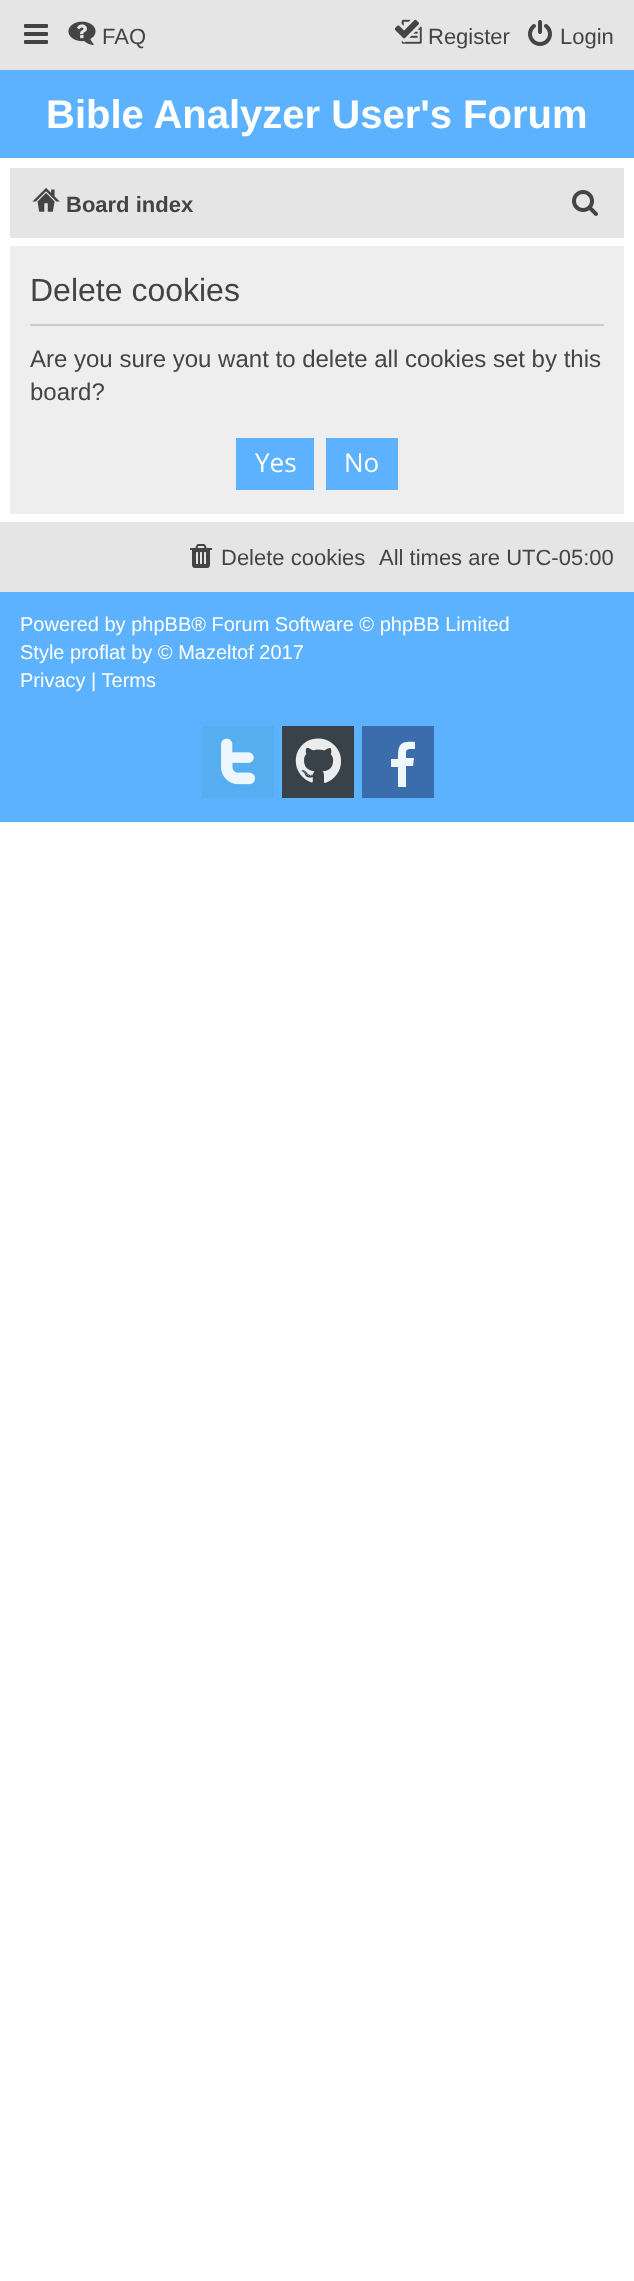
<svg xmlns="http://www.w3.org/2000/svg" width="634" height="2281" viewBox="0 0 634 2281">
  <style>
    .t1 { font: 22px Liberation Sans; fill: #444; }
    .t2 { font: bold 40px Liberation Sans; fill: #fff; }
    .t3 { font: bold 22px Liberation Sans; fill: #444; }
    .t4 { font: 32px Liberation Sans; fill: #444; }
    .t5 { font: 24px Liberation Sans; fill: #444; }
    .t6 { font: 26px Open Sans; fill: #fff; }
    .t7 { font: 20px Liberation Sans; fill: #fff; }
  </style>
  <rect width="100%" height="100%" fill="#fff"/>
  <rect x="0" y="0" width="634" height="70" fill="#e5e5e5"/>
  <image x="24" y="24" width="24" height="20" href="images/1.png"/>
  <image x="68" y="21" width="28" height="24" href="images/2.png"/>
  <text x="102" y="44" class="t1">FAQ</text>
  <image x="394" y="19" width="28" height="25" href="images/3.png"/>
  <text x="428" y="44" class="t1">Register</text>
  <image x="528" y="20" width="24" height="26" href="images/4.png"/>
  <text x="560" y="44" class="t1">Login</text>
  <rect x="0" y="70" width="634" height="88" fill="#5db2ff"/>
  <text x="46" y="128" class="t2">Bible Analyzer User's Forum</text>
  <rect x="10" y="168" width="614" height="70" fill="#e5e5e5"/>
  <image x="32" y="188" width="28" height="24" href="images/5.png"/>
  <text x="66" y="212" class="t3">Board index</text>
  <image x="572" y="190" width="26" height="26" href="images/6.png"/>
  <rect x="10" y="246" width="614" height="268" fill="#eee"/>
  <rect x="30" y="324" width="574" height="2" fill="#ccc"/>
  <text x="30" y="301" class="t4">Delete cookies</text>
  <text x="30" y="367" class="t5">Are you sure you want to delete all cookies set by this</text>
  <text x="30" y="400" class="t5">board?</text>
  <rect x="236" y="438" width="78" height="52" fill="#5db2ff"/>
  <text x="255" y="472" class="t6">Yes</text>
  <rect x="326" y="438" width="72" height="52" fill="#5db2ff"/>
  <text x="344" y="472" class="t6">No</text>
  <rect x="0" y="522" width="634" height="70" fill="#e5e5e5"/>
  <image x="190" y="544" width="22" height="24" href="images/7.png"/>
  <text x="221" y="565" class="t1">Delete cookies</text>
  <text x="379" y="565" class="t1">All times are UTC-05:00</text>
  <rect x="0" y="592" width="634" height="230" fill="#5db2ff"/>
  <text x="20" y="631" class="t7">Powered by phpBB® Forum Software © phpBB Limited</text>
  <text x="20" y="659" class="t7">Style proflat by © Mazeltof 2017</text>
  <text x="20" y="687" class="t7">Privacy | Terms</text>
  <rect x="202" y="726" width="72" height="72" fill="#56adf0"/>
  <image x="221" y="738" width="35" height="47" href="images/8.png"/>
  <rect x="282" y="726" width="72" height="72" fill="#394249"/>
  <image x="295" y="738" width="47" height="45" href="images/9.png"/>
  <rect x="362" y="726" width="72" height="72" fill="#3b6dac"/>
  <path d="M415 742V749C405 749 406 749 406 758H414L413 766H406V787H398V767H391V759H398C398 744 400 741 415 742Z" fill="#eff7ff"/>
</svg>
